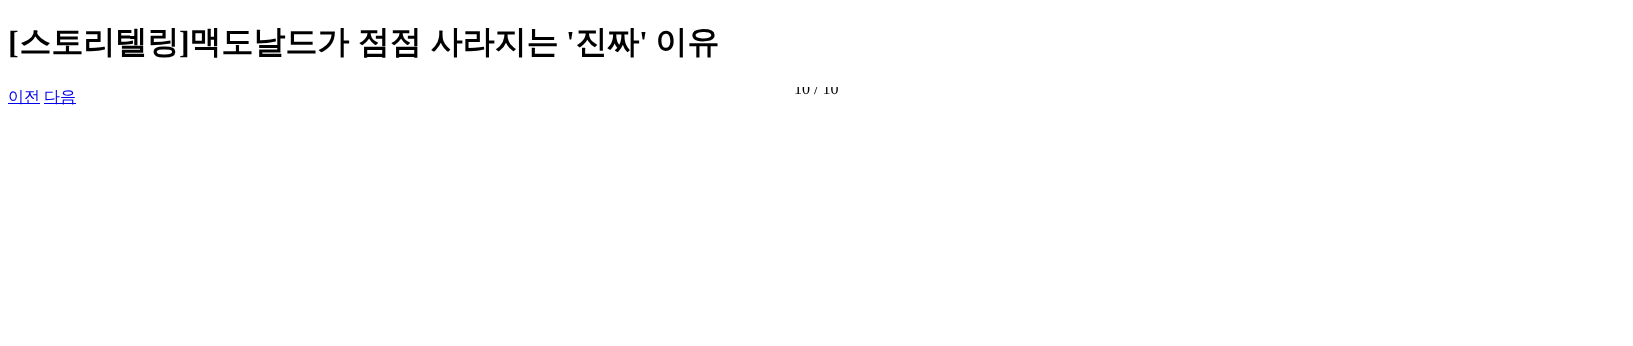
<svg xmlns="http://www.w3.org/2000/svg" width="1633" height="346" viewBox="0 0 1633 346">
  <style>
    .t1 { font: bold 32px Liberation Serif; fill: #000; }
    .t2 { font: bold 32px WenQuanYi Zen Hei; fill: #000; }
    .t3 { font: 500 16px WenQuanYi Zen Hei; fill: #00e; }
    .t4 { font: 16px Liberation Serif; fill: #000; }
  </style>
  <defs>
    <clipPath id="clip1"><rect x="8" y="87" width="1617" height="21"/></clipPath>
  </defs>
  <rect width="100%" height="100%" fill="#fff"/>
  <text x="8" y="53" class="t1">[</text>
  <text x="19" y="53" class="t2">스토리텔링</text>
  <text x="179" y="53" class="t1">]</text>
  <text x="189" y="53" word-spacing="-1" class="t2">맥도날드가 점점 사라지는</text>
  <text x="566" y="53" class="t1">'</text>
  <text x="575" y="53" class="t2">진짜</text>
  <text x="639" y="53" class="t1">'</text>
  <text x="655" y="53" class="t2">이유</text>
  <rect x="8" y="103" width="32" height="1" fill="#00e"/>
  <text x="8" y="102" class="t3">이전</text>
  <rect x="44" y="103" width="32" height="1" fill="#00e"/>
  <text x="44" y="102" class="t3">다음</text>
  <g clip-path="url(#clip1)">
    <text x="794" y="94" class="t4">10 / 10</text>
  </g>
</svg>
